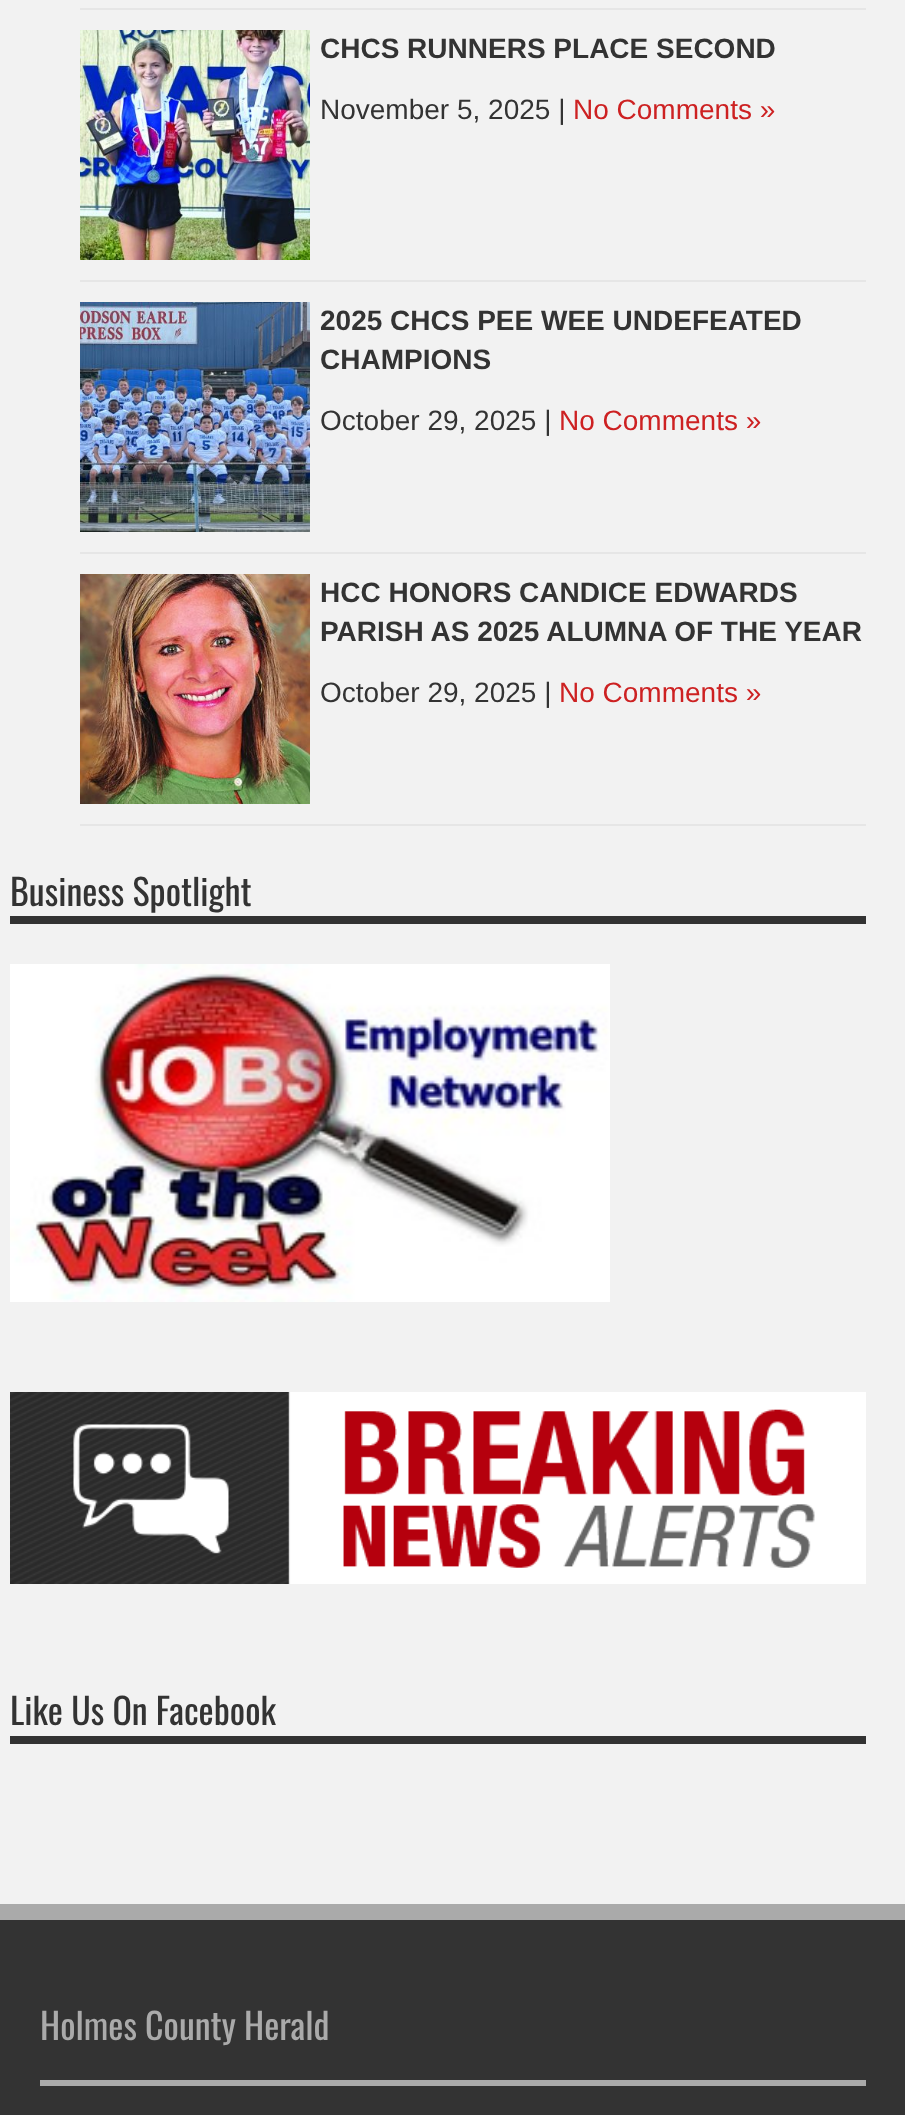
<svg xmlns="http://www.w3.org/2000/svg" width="905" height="2115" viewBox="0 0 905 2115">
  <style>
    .t1 { font: bold 28px Liberation Sans; fill: #333; }
    .t2 { font: 28px Liberation Sans; fill: #333; }
    .t3 { font: 28px Liberation Sans; fill: #cd2122; }
    .t4 { font: 36px Oswald; fill: #333; }
    .t5 { font: 36px Oswald; fill: #aaa; }
  </style>
  <rect width="100%" height="100%" fill="#f2f2f2"/>
  <rect x="80" y="8" width="786" height="2" fill="#e6e6e6"/>
  <rect x="80" y="280" width="786" height="2" fill="#e6e6e6"/>
  <image x="80" y="30" width="230" height="230" href="images/1.png"/>
  <text x="320" y="58" class="t1">CHCS RUNNERS PLACE SECOND</text>
  <text x="320" y="119" class="t2">November 5, 2025 |</text>
  <text x="573" y="119" class="t3">No Comments »</text>
  <rect x="80" y="552" width="786" height="2" fill="#e6e6e6"/>
  <image x="80" y="302" width="230" height="230" href="images/2.png"/>
  <text x="320" y="330" class="t1">2025 CHCS PEE WEE UNDEFEATED</text>
  <text x="320" y="369" class="t1">CHAMPIONS</text>
  <text x="320" y="430" class="t2">October 29, 2025 |</text>
  <text x="559" y="430" class="t3">No Comments »</text>
  <rect x="80" y="824" width="786" height="2" fill="#e6e6e6"/>
  <image x="80" y="574" width="230" height="230" href="images/3.png"/>
  <text x="320" y="602" class="t1">HCC HONORS CANDICE EDWARDS</text>
  <text x="320" y="641" class="t1">PARISH AS 2025 ALUMNA OF THE YEAR</text>
  <text x="320" y="702" class="t2">October 29, 2025 |</text>
  <text x="559" y="702" class="t3">No Comments »</text>
  <rect x="10" y="916" width="856" height="8" fill="#333"/>
  <text x="10" y="906" class="t4">Business Spotlight</text>
  <image x="10" y="964" width="600" height="338" href="images/4.png"/>
  <image x="10" y="1392" width="856" height="192" href="images/5.png"/>
  <rect x="10" y="1736" width="856" height="8" fill="#333"/>
  <text x="10" y="1725" class="t4">Like Us On Facebook</text>
  <rect x="0" y="1920" width="905" height="195" fill="#333"/>
  <rect x="0" y="1904" width="905" height="16" fill="#aaa"/>
  <rect x="40" y="2080" width="826" height="6" fill="#aaa"/>
  <text x="40" y="2040" class="t5">Holmes County Herald</text>
</svg>
